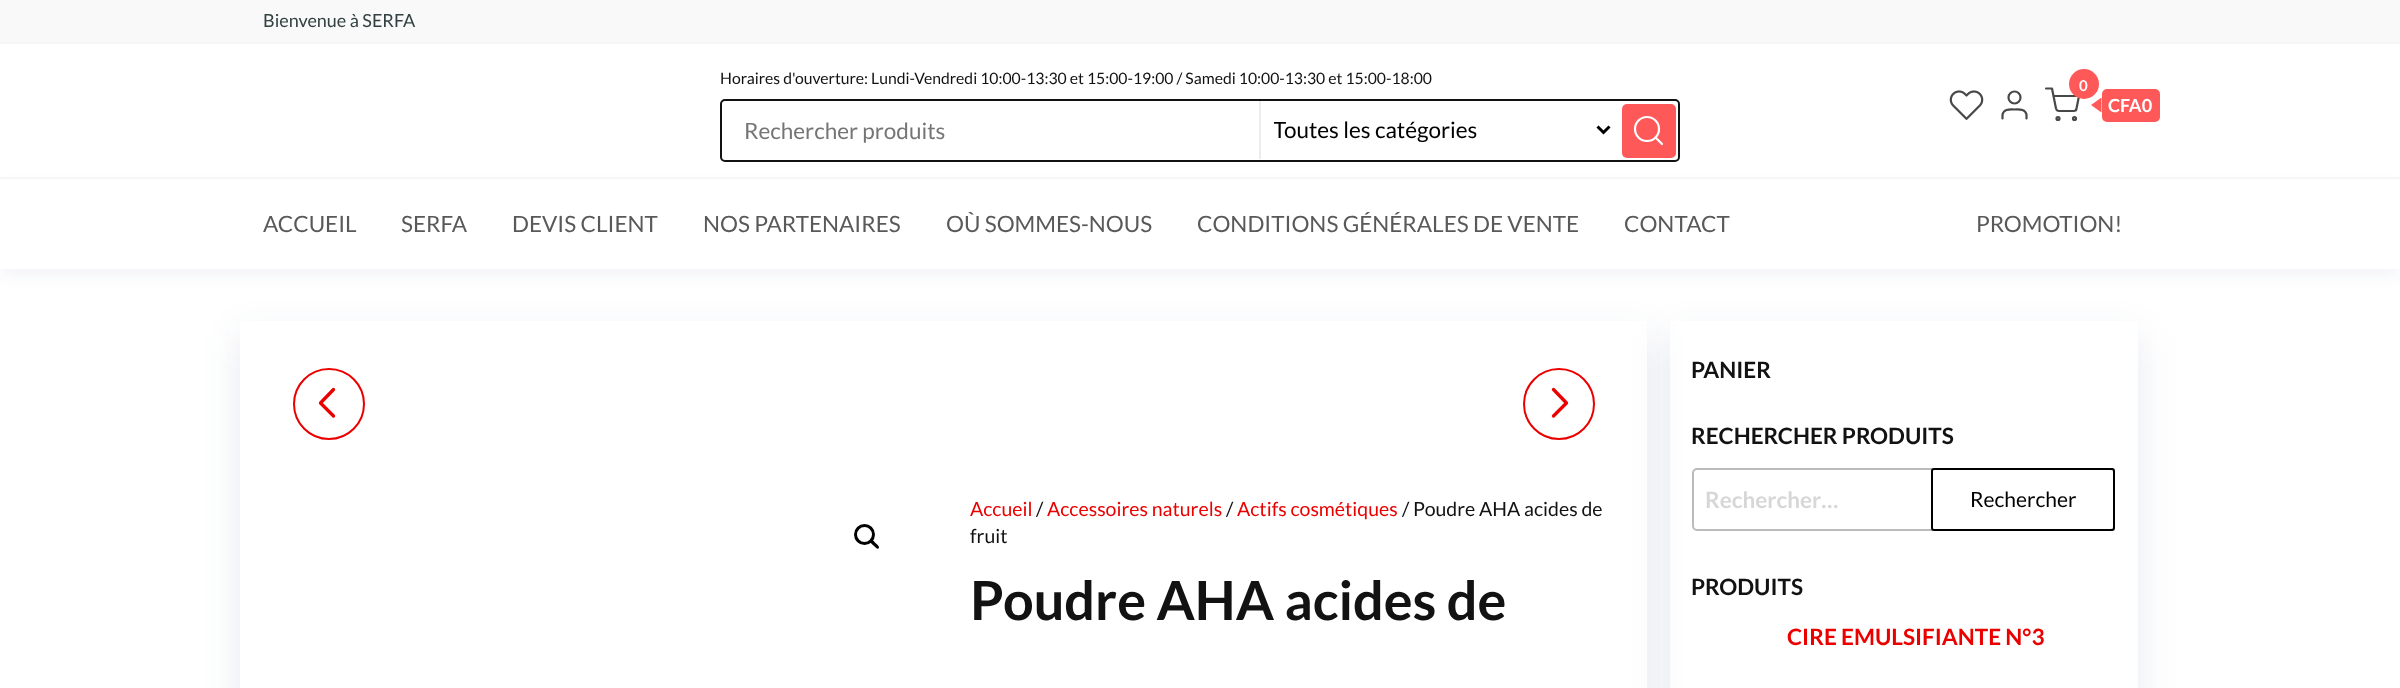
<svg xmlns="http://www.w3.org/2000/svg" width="2400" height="688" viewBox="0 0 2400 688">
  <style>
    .t1 { font: 18px Lato; fill: #334142; }
    .t2 { font: 15.75px Lato; fill: #121212; }
    .t3 { font: 22.5px Lato; fill: #757575; }
    .t4 { font: 22.5px Lato; fill: #000; }
    .t5 { font: bold 15px Lato; fill: #fff; }
    .t6 { font: bold 18px Lato; fill: #fff; }
    .t7 { font: 22.5px Lato; fill: #595959; }
    .t8 { font: 19.5px Lato; fill: #eb0000; }
    .t9 { font: 19.5px Lato; fill: #121212; }
    .t10 { font: bold 54px Lato; fill: #121212; }
    .t11 { font: bold 22.5px Lato; fill: #121212; }
    .t12 { font: bold 22.5px Lato; fill: #d7d7d7; }
    .t13 { font: 21px Lato; fill: #000; }
    .t14 { font: bold 22.5px Lato; fill: #eb0000; }
  </style>
  <defs>
    <clipPath id="clip1"><rect x="1274" y="114" width="310" height="30"/></clipPath>
    <clipPath id="clip2"><path d="M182 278H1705V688H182ZM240 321H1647V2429H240Z" clip-rule="evenodd"/></clipPath>
    <clipPath id="clip3"><path d="M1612 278H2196V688H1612ZM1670 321H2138V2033H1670Z" clip-rule="evenodd"/></clipPath>
  </defs>
  <rect width="100%" height="100%" fill="#fff"/>
  <rect x="0" y="0" width="2400" height="42" fill="#f9f9f9"/>
  <rect x="0" y="42" width="2400" height="2" fill="#f6f6f6"/>
  <text x="263" y="27" class="t1">Bienvenue à SERFA</text>
  <rect x="0" y="186" width="2400" height="90" fill="#192d6e0d" filter="blur(7.5px)"/>
  <rect x="0" y="177" width="2400" height="2" fill="#f6f6f6"/>
  <text x="720" y="84" class="t2">Horaires d'ouverture: Lundi-Vendredi 10:00-13:30 et 15:00-19:00 / Samedi 10:00-13:30 et 15:00-18:00</text>
  <rect x="721" y="100" width="958" height="61" rx="4" fill="none" stroke="#121212" stroke-width="2"/>
  <text x="744" y="139" class="t3">Rechercher produits</text>
  <rect x="1259" y="101" width="2" height="58" fill="#ececec"/>
  <path d="M1597.5 126.5L1603.5 132.5L1609.5 126.5" fill="none" stroke="#000" stroke-width="3"/>
  <g clip-path="url(#clip1)">
    <text x="1273" y="138" class="t4">Toutes les catégories</text>
  </g>
  <rect x="1622" y="104" width="54" height="54" rx="5" fill="#ff5858"/>
  <circle cx="1647" cy="129" r="12" fill="none" stroke="#fff" stroke-width="2.2"/>
  <path d="M1662 144L1655.5 137.5" fill="none" stroke="#fff" stroke-width="2.2" stroke-linecap="round" stroke-linejoin="round"/>
  <image x="1949" y="90" width="35" height="30" href="images/1.png"/>
  <circle cx="2014.5" cy="97.5" r="6" fill="none" stroke="#484848" stroke-width="2.2"/>
  <path d="M2026.5 118.5V114.5C2025 108.5 2019 109.5 2014.5 109.5C2010 109.5 2004 108.5 2002.5 114.5V118.5" fill="none" stroke="#484848" stroke-width="2.2" stroke-linecap="round" stroke-linejoin="round"/>
  <path d="M2046 88.5H2052L2056 108.5C2056.5 110 2057.5 111 2059 111H2073.5C2075 111 2076.5 110 2076.5 108.5L2079 96H2053.5" fill="none" stroke="#484848" stroke-width="2.2" stroke-linecap="round" stroke-linejoin="round"/>
  <circle cx="2084" cy="84" r="15" fill="#ff5858"/>
  <text x="2079" y="91" class="t5">0</text>
  <rect x="2102" y="89" width="58" height="33" rx="5" fill="#ff5858"/>
  <path d="M2101.5 97.5V112.5L2091 105Z" fill="#ff5858"/>
  <text x="2108" y="112" class="t6">CFA0</text>
  <circle cx="2058" cy="118.5" r="1.5" fill="none" stroke="#484848" stroke-width="2.2"/>
  <circle cx="2074.5" cy="118.5" r="1.5" fill="none" stroke="#484848" stroke-width="2.2"/>
  <rect x="0" y="180" width="2400" height="89" fill="#fff"/>
  <text x="263" y="232" class="t7">ACCUEIL</text>
  <text x="401" y="232" class="t7">SERFA</text>
  <text x="512" y="232" class="t7">DEVIS CLIENT</text>
  <text x="703" y="232" class="t7">NOS PARTENAIRES</text>
  <text x="946" y="232" class="t7">OÙ SOMMES-NOUS</text>
  <text x="1197" y="232" class="t7">CONDITIONS GÉNÉRALES DE VENTE</text>
  <text x="1624" y="232" class="t7">CONTACT</text>
  <text x="1976" y="232" class="t7">PROMOTION!</text>
  <g clip-path="url(#clip2)">
    <rect x="240" y="336" width="1407" height="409" fill="#192d6e1a" filter="blur(19px)"/>
  </g>
  <circle cx="329" cy="404" r="35" fill="none" stroke="#eb0000" stroke-width="2"/>
  <path d="M333.5 416L320.5 403L333.5 389.5" fill="none" stroke="#eb0000" stroke-width="3.3" stroke-linecap="round" stroke-linejoin="round"/>
  <circle cx="1559" cy="404" r="35" fill="none" stroke="#eb0000" stroke-width="2"/>
  <path d="M1553.5 416L1566.5 403L1553.5 389.5" fill="none" stroke="#eb0000" stroke-width="3.3" stroke-linecap="round" stroke-linejoin="round"/>
  <circle cx="864.5" cy="534.5" r="9" fill="none" stroke="#000" stroke-width="3"/>
  <path d="M870.5 540C872 538 874.5 542 875.5 543C876.5 544 880.5 546.5 878.5 548.5C877 550 874.5 546 873.5 545.5C872.5 544.5 868.5 541.5 870.5 540Z" fill="#000"/>
  <text x="970" y="516" class="t8">Accueil</text>
  <text x="1036" y="516" class="t9">/</text>
  <text x="1047" y="516" class="t8">Accessoires naturels</text>
  <text x="1226" y="516" class="t9">/</text>
  <text x="1237" y="516" class="t8">Actifs cosmétiques</text>
  <text x="1402" y="516" class="t9">/ Poudre AHA acides de</text>
  <text x="970" y="543" class="t9">fruit</text>
  <text x="970" y="620" class="t10">Poudre AHA acides de</text>
  <g clip-path="url(#clip3)">
    <rect x="1670" y="336" width="468" height="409" fill="#1c2d711a" filter="blur(19px)"/>
  </g>
  <text x="1691" y="378" class="t11">PANIER</text>
  <text x="1691" y="444" class="t11">RECHERCHER PRODUITS</text>
  <rect x="1693" y="469" width="421" height="61" rx="4" fill="none" stroke="#bbb" stroke-width="2"/>
  <text x="1705" y="508" class="t12">Rechercher…</text>
  <rect x="1932" y="469" width="182" height="61" rx="2" fill="none" stroke="#000" stroke-width="2"/>
  <text x="1970" y="507" class="t13">Rechercher</text>
  <text x="1691" y="595" class="t11">PRODUITS</text>
  <text x="1787" y="645" class="t14">CIRE EMULSIFIANTE N°3</text>
</svg>
